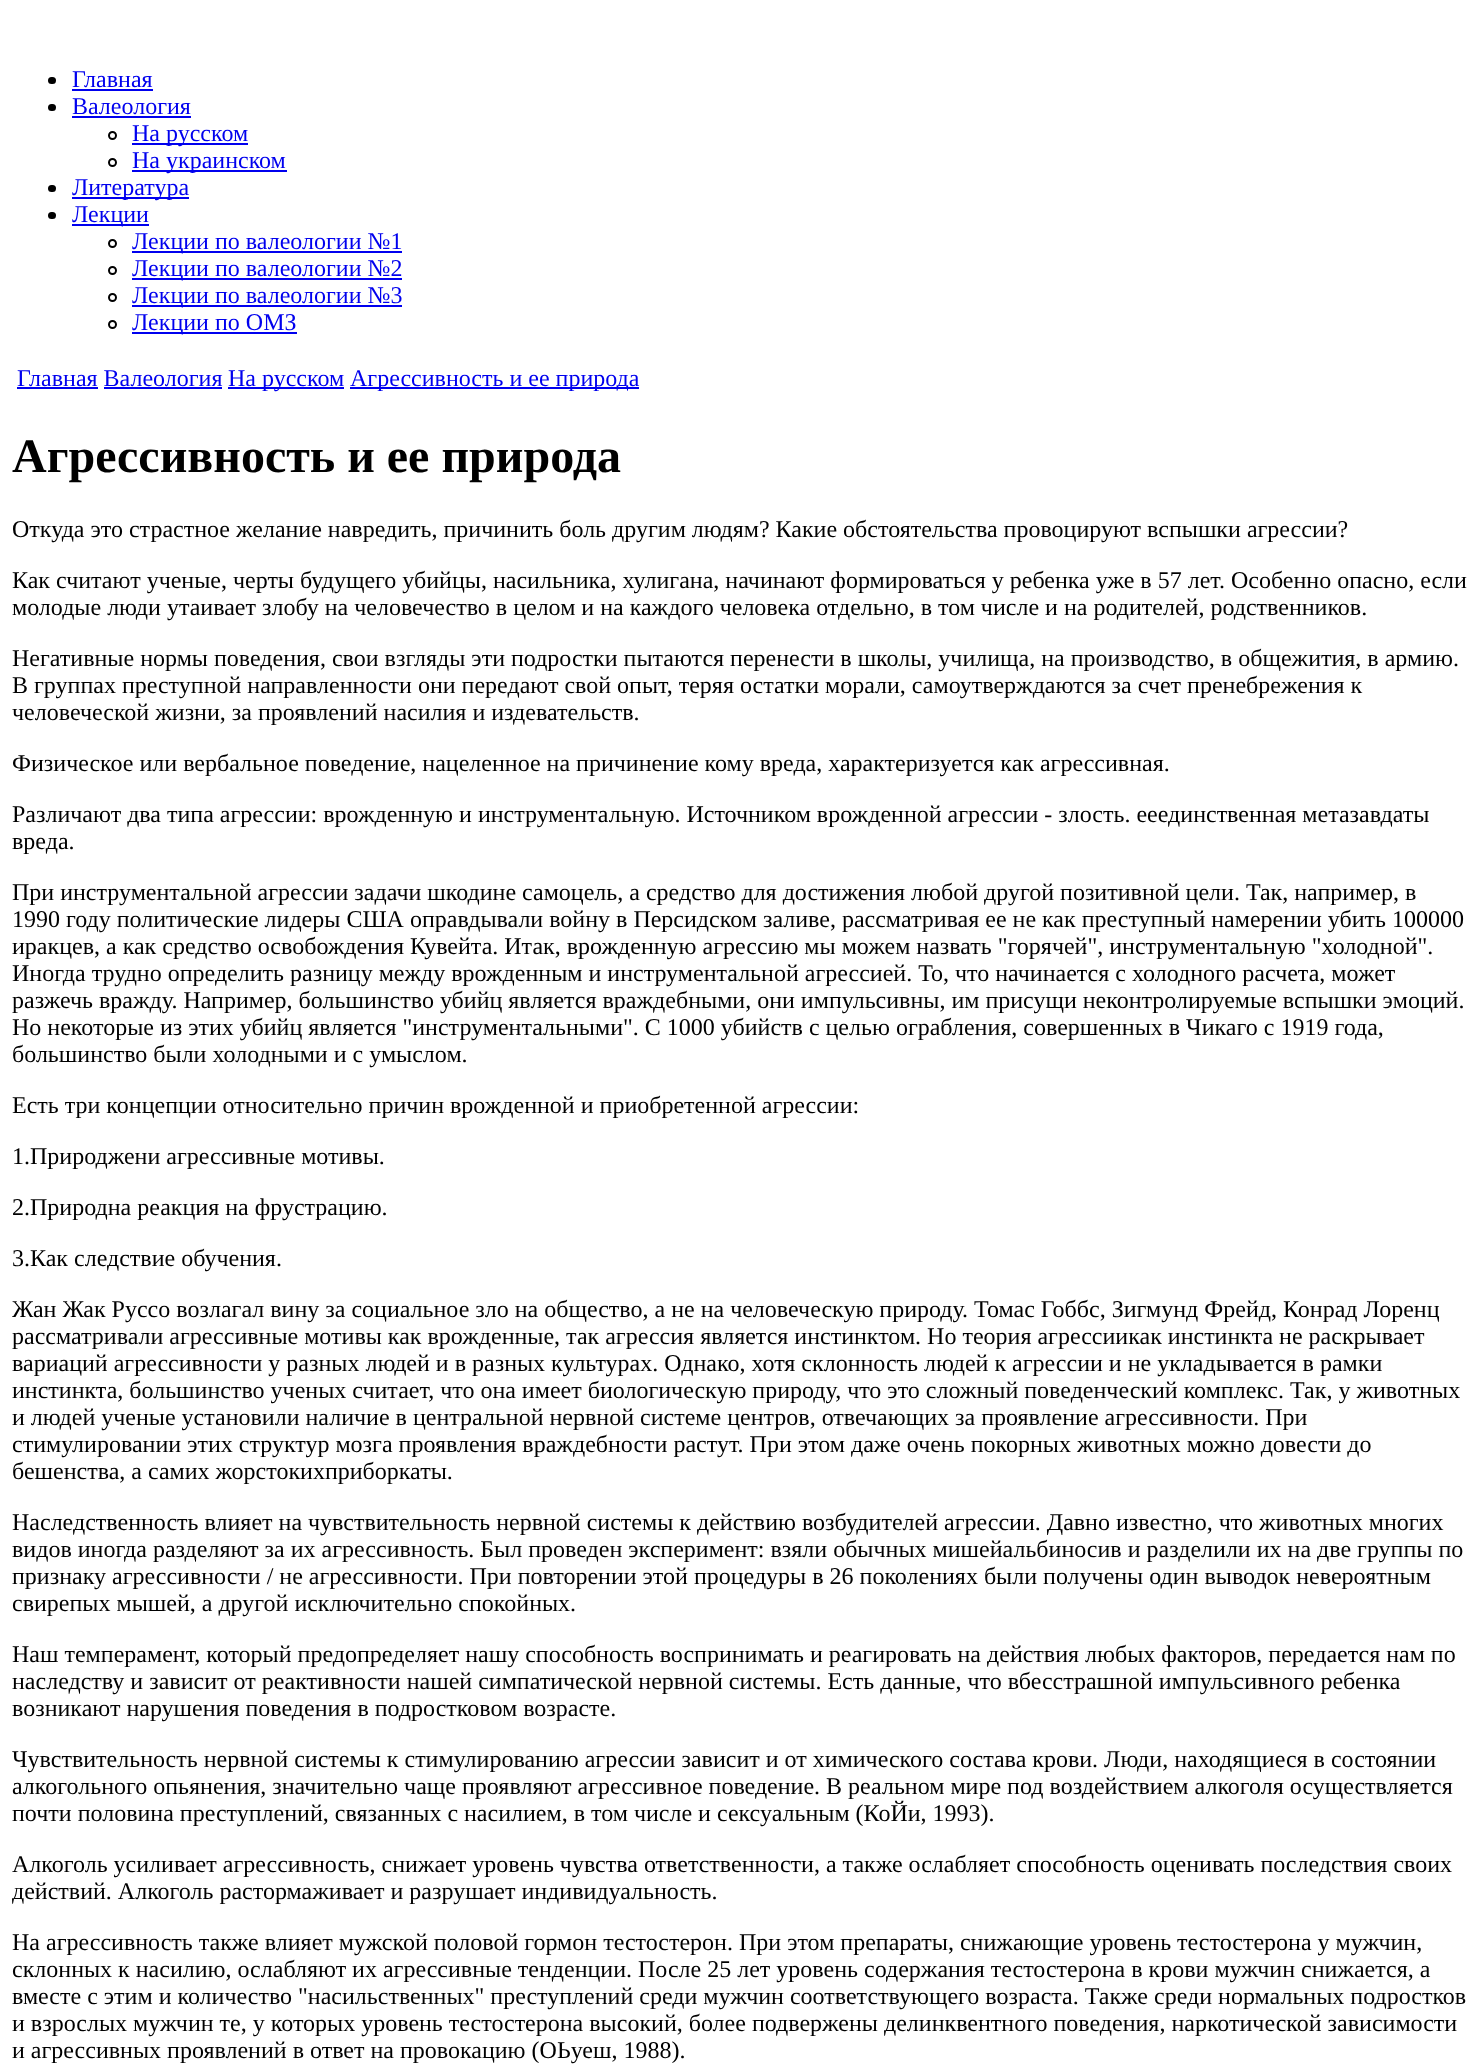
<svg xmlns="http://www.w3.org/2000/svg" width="1481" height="2072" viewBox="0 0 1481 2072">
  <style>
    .t1 { font: 24px Liberation Serif; fill: #00e; }
    .t2 { font: bold 48px Liberation Serif; fill: #000; }
    .t3 { font: 24px Liberation Serif; fill: #000; }
  </style>
  <rect width="100%" height="100%" fill="#fff"/>
  <rect x="48" y="77" width="8" height="7" rx="3.5" fill="#000"/>
  <text x="72" y="87" class="t1">Главная</text>
  <rect x="72" y="89" width="81" height="2" fill="#00e"/>
  <rect x="48" y="104" width="8" height="7" rx="3.5" fill="#000"/>
  <text x="72" y="114" class="t1">Валеология</text>
  <rect x="72" y="116" width="119" height="2" fill="#00e"/>
  <circle cx="112.5" cy="135.5" r="3.5" fill="none" stroke="#000" stroke-width="2"/>
  <rect x="132" y="143" width="116" height="2" fill="#00e"/>
  <text x="132" y="141" class="t1">На русском</text>
  <circle cx="112.5" cy="162.5" r="3.5" fill="none" stroke="#000" stroke-width="2"/>
  <rect x="132" y="170" width="155" height="2" fill="#00e"/>
  <text x="132" y="168" class="t1">На украинском</text>
  <rect x="48" y="185" width="8" height="7" rx="3.5" fill="#000"/>
  <rect x="72" y="197" width="117" height="2" fill="#00e"/>
  <text x="72" y="195" class="t1">Литература</text>
  <rect x="48" y="212" width="8" height="7" rx="3.5" fill="#000"/>
  <rect x="72" y="224" width="77" height="2" fill="#00e"/>
  <text x="72" y="222" class="t1">Лекции</text>
  <circle cx="112.5" cy="243.5" r="3.5" fill="none" stroke="#000" stroke-width="2"/>
  <rect x="132" y="251" width="270" height="2" fill="#00e"/>
  <text x="132" y="249" class="t1">Лекции по валеологии №1</text>
  <circle cx="112.5" cy="270.5" r="3.5" fill="none" stroke="#000" stroke-width="2"/>
  <rect x="132" y="278" width="270" height="2" fill="#00e"/>
  <text x="132" y="276" class="t1">Лекции по валеологии №2</text>
  <circle cx="112.5" cy="297.5" r="3.5" fill="none" stroke="#000" stroke-width="2"/>
  <rect x="132" y="305" width="270" height="2" fill="#00e"/>
  <text x="132" y="303" class="t1">Лекции по валеологии №3</text>
  <circle cx="112.5" cy="324.5" r="3.5" fill="none" stroke="#000" stroke-width="2"/>
  <rect x="132" y="332" width="165" height="2" fill="#00e"/>
  <text x="132" y="330" class="t1">Лекции по ОМЗ</text>
  <text x="17" y="386" class="t1">Главная Валеология</text>
  <rect x="17" y="387" width="81" height="2" fill="#00e"/>
  <rect x="228" y="387" width="116" height="2" fill="#00e"/>
  <text x="228" y="386" class="t1">На русском</text>
  <rect x="350" y="387" width="289" height="2" fill="#00e"/>
  <text x="350" y="386" class="t1">Агрессивность и ее природа</text>
  <rect x="104" y="387" width="118" height="2" fill="#00e"/>
  <text x="12" y="472" class="t2">Агрессивность и ее природа</text>
  <text x="12" y="537" class="t3">Откуда это страстное желание навредить, причинить боль другим людям? Какие обстоятельства провоцируют вспышки агрессии?</text>
  <text x="12" y="588" class="t3">Как считают ученые, черты будущего убийцы, насильника, хулигана, начинают формироваться у ребенка уже в 57 лет. Особенно опасно, если</text>
  <text x="12" y="615" class="t3">молодые люди утаивает злобу на человечество в целом и на каждого человека отдельно, в том числе и на родителей, родственников.</text>
  <text x="12" y="666" class="t3">Негативные нормы поведения, свои взгляды эти подростки пытаются перенести в школы, училища, на производство, в общежития, в армию.</text>
  <text x="12" y="693" class="t3">В группах преступной направленности они передают свой опыт, теряя остатки морали, самоутверждаются за счет пренебрежения к</text>
  <text x="12" y="720" class="t3">человеческой жизни, за проявлений насилия и издевательств.</text>
  <text x="12" y="771" class="t3">Физическое или вербальное поведение, нацеленное на причинение кому вреда, характеризуется как агрессивная.</text>
  <text x="12" y="822" class="t3">Различают два типа агрессии: врожденную и инструментальную. Источником врожденной агрессии - злость. ееединственная метазавдаты</text>
  <text x="12" y="849" class="t3">вреда.</text>
  <text x="12" y="900" class="t3">При инструментальной агрессии задачи шкодине самоцель, а средство для достижения любой другой позитивной цели. Так, например, в</text>
  <text x="12" y="927" class="t3">1990 году политические лидеры США оправдывали войну в Персидском заливе, рассматривая ее не как преступный намерении убить 100000</text>
  <text x="12" y="954" class="t3">иракцев, а как средство освобождения Кувейта. Итак, врожденную агрессию мы можем назвать "горячей", инструментальную "холодной".</text>
  <text x="12" y="981" class="t3">Иногда трудно определить разницу между врожденным и инструментальной агрессией. То, что начинается с холодного расчета, может</text>
  <text x="12" y="1008" class="t3">разжечь вражду. Например, большинство убийц является враждебными, они импульсивны, им присущи неконтролируемые вспышки эмоций.</text>
  <text x="12" y="1035" class="t3">Но некоторые из этих убийц является "инструментальными". С 1000 убийств с целью ограбления, совершенных в Чикаго с 1919 года,</text>
  <text x="12" y="1062" class="t3">большинство были холодными и с умыслом.</text>
  <text x="12" y="1113" class="t3">Есть три концепции относительно причин врожденной и приобретенной агрессии:</text>
  <text x="12" y="1164" class="t3">1.Природжени агрессивные мотивы.</text>
  <text x="12" y="1215" class="t3">2.Природна реакция на фрустрацию.</text>
  <text x="12" y="1266" class="t3">3.Как следствие обучения.</text>
  <text x="12" y="1317" class="t3">Жан Жак Руссо возлагал вину за социальное зло на общество, а не на человеческую природу. Томас Гоббс, Зигмунд Фрейд, Конрад Лоренц</text>
  <text x="12" y="1344" class="t3">рассматривали агрессивные мотивы как врожденные, так агрессия является инстинктом. Но теория агрессиикак инстинкта не раскрывает</text>
  <text x="12" y="1371" class="t3">вариаций агрессивности у разных людей и в разных культурах. Однако, хотя склонность людей к агрессии и не укладывается в рамки</text>
  <text x="12" y="1398" class="t3">инстинкта, большинство ученых считает, что она имеет биологическую природу, что это сложный поведенческий комплекс. Так, у животных</text>
  <text x="12" y="1425" class="t3">и людей ученые установили наличие в центральной нервной системе центров, отвечающих за проявление агрессивности. При</text>
  <text x="12" y="1452" class="t3">стимулировании этих структур мозга проявления враждебности растут. При этом даже очень покорных животных можно довести до</text>
  <text x="12" y="1479" class="t3">бешенства, а самих жорстокихприборкаты.</text>
  <text x="12" y="1530" class="t3">Наследственность влияет на чувствительность нервной системы к действию возбудителей агрессии. Давно известно, что животных многих</text>
  <text x="12" y="1557" class="t3">видов иногда разделяют за их агрессивность. Был проведен эксперимент: взяли обычных мишейальбиносив и разделили их на две группы по</text>
  <text x="12" y="1584" class="t3">признаку агрессивности / не агрессивности. При повторении этой процедуры в 26 поколениях были получены один выводок невероятным</text>
  <text x="12" y="1611" class="t3">свирепых мышей, а другой исключительно спокойных.</text>
  <text x="12" y="1662" class="t3">Наш темперамент, который предопределяет нашу способность воспринимать и реагировать на действия любых факторов, передается нам по</text>
  <text x="12" y="1689" class="t3">наследству и зависит от реактивности нашей симпатической нервной системы. Есть данные, что вбесстрашной импульсивного ребенка</text>
  <text x="12" y="1716" class="t3">возникают нарушения поведения в подростковом возрасте.</text>
  <text x="12" y="1767" class="t3">Чувствительность нервной системы к стимулированию агрессии зависит и от химического состава крови. Люди, находящиеся в состоянии</text>
  <text x="12" y="1794" class="t3">алкогольного опьянения, значительно чаще проявляют агрессивное поведение. В реальном мире под воздействием алкоголя осуществляется</text>
  <text x="12" y="1821" class="t3">почти половина преступлений, связанных с насилием, в том числе и сексуальным (КоЙи, 1993).</text>
  <text x="12" y="1872" class="t3">Алкоголь усиливает агрессивность, снижает уровень чувства ответственности, а также ослабляет способность оценивать последствия своих</text>
  <text x="12" y="1899" class="t3">действий. Алкоголь растормаживает и разрушает индивидуальность.</text>
  <text x="12" y="1950" class="t3">На агрессивность также влияет мужской половой гормон тестостерон. При этом препараты, снижающие уровень тестостерона у мужчин,</text>
  <text x="12" y="1977" class="t3">склонных к насилию, ослабляют их агрессивные тенденции. После 25 лет уровень содержания тестостерона в крови мужчин снижается, а</text>
  <text x="12" y="2004" class="t3">вместе с этим и количество "насильственных" преступлений среди мужчин соответствующего возраста. Также среди нормальных подростков</text>
  <text x="12" y="2031" class="t3">и взрослых мужчин те, у которых уровень тестостерона высокий, более подвержены делинквентного поведения, наркотической зависимости</text>
  <text x="12" y="2058" class="t3">и агрессивных проявлений в ответ на провокацию (ОЬуеш, 1988).</text>
</svg>
